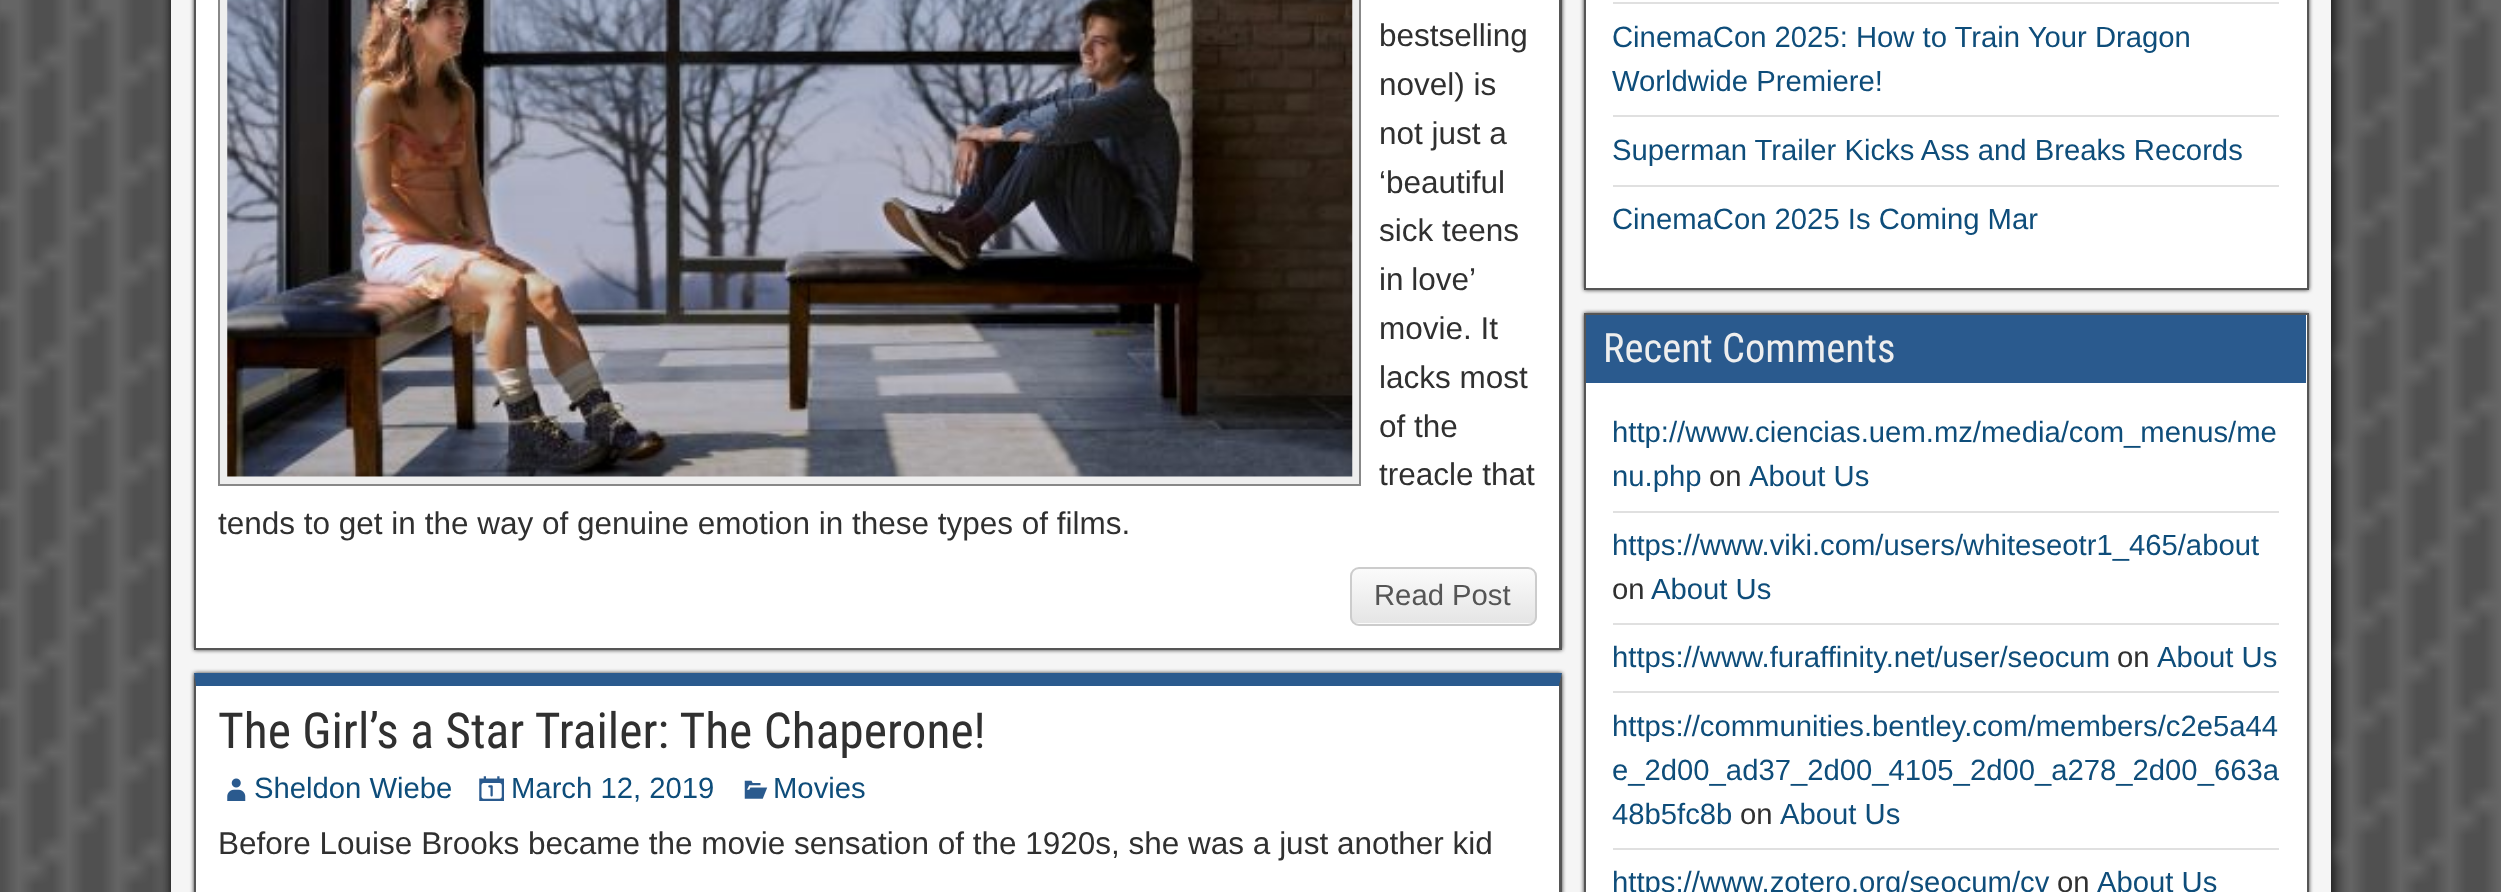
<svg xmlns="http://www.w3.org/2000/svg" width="2501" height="892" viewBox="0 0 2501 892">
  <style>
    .t1 { font: 31.5px Arimo; fill: #303030; }
    .t2 { font: 29.25px Liberation Sans; fill: #555; }
    .t3 { font: 49.5px Roboto Condensed; fill: #303030; }
    .t4 { font: 29.25px Liberation Sans; fill: #0e4d7a; }
    .t5 { font: 40.5px Roboto Condensed; fill: #eee; }
    .t6 { font: 29.25px Liberation Sans; fill: #303030; }
  </style>
  <defs>
    <clipPath id="clip1"><rect x="1350" y="567" width="187" height="59" rx="9"/></clipPath>
    <linearGradient id="g1" gradientUnits="userSpaceOnUse" x1="1443" y1="569" x2="1443" y2="623"><stop offset="0" stop-color="#fbfbfb"/><stop offset="1" stop-color="#e5e5e5"/></linearGradient>
    <linearGradient id="g2" gradientUnits="userSpaceOnUse" x1="1443" y1="623" x2="1443" y2="677"><stop offset="0" stop-color="#fbfbfb"/><stop offset="1" stop-color="#e5e5e5"/></linearGradient>
  </defs>
  <rect width="100%" height="100%" fill="#505050"/>
  <image x="0" y="0" width="2501" height="892" href="images/1.png"/>
  <rect x="171" y="-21" width="2160" height="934" fill="#000" filter="blur(7px)"/>
  <rect x="171" y="0" width="2160" height="892" fill="#f5f5f5"/>
  <rect x="194" y="-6" width="1368" height="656" fill="#333" filter="blur(2px)"/>
  <rect x="196" y="0" width="1363" height="648" fill="#fff"/>
  <path d="M1562-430V650L1559 648V-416Z" fill="#555"/>
  <rect x="194" y="648" width="1368" height="2" fill="#555"/>
  <path d="M194 650V-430L196-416V648Z" fill="#555"/>
  <rect x="219" y="-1" width="1141" height="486" fill="#eee" stroke="#888" stroke-width="2"/>
  <image x="227" y="0" width="1126" height="477" href="images/2.png"/>
  <text x="1379" y="46" class="t1">bestselling</text>
  <text x="1379" y="95" class="t1">novel) is</text>
  <text x="1379" y="144" class="t1">not just a</text>
  <text x="1379" y="193" class="t1">‘beautiful</text>
  <text x="1379" y="241" class="t1">sick teens</text>
  <text x="1379" y="290" word-spacing="-1" class="t1">in love’</text>
  <text x="1379" y="339" class="t1">movie. It</text>
  <text x="1379" y="388" class="t1">lacks most</text>
  <text x="1379" y="437" class="t1">of the</text>
  <text x="1379" y="485" class="t1">treacle that</text>
  <text x="218" y="534" class="t1">tends to get in the way of genuine emotion in these types of films.</text>
  <g clip-path="url(#clip1)">
    <rect x="1350" y="569" width="187" height="54" fill="url(#g1)"/>
    <rect x="1350" y="623" width="187" height="3" fill="url(#g2)"/>
  </g>
  <rect x="1351" y="568" width="185" height="57" rx="8" fill="none" stroke="#ccc" stroke-width="2"/>
  <text x="1374" y="605" class="t2">Read Post</text>
  <rect x="194" y="673" width="1368" height="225" fill="#333" filter="blur(2px)"/>
  <rect x="196" y="686" width="1363" height="206" fill="#fff"/>
  <path d="M194 673H1562L1559 686H196Z" fill="#2a5a8e"/>
  <path d="M1562 673V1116L1559 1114V686Z" fill="#555"/>
  <path d="M194 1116V673L196 686V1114Z" fill="#555"/>
  <text x="218" y="748" class="t3">The Girl’s a Star Trailer: The Chaperone!</text>
  <image x="227" y="778" width="19" height="23" href="images/3.png"/>
  <text x="254" y="798" class="t4">Sheldon Wiebe</text>
  <image x="479" y="776" width="25" height="25" href="images/4.png"/>
  <text x="511" y="798" class="t4">March 12, 2019</text>
  <image x="744" y="780" width="24" height="19" href="images/5.png"/>
  <text x="773" y="798" class="t4">Movies</text>
  <text x="218" y="854" class="t1">Before Louise Brooks became the movie sensation of the 1920s, she was a just another kid</text>
  <rect x="1584" y="-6" width="725" height="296" fill="#333" filter="blur(2px)"/>
  <rect x="1585" y="-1" width="723" height="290" fill="#fff" stroke="#555" stroke-width="2"/>
  <rect x="1613" y="2" width="666" height="2" fill="#e0e0e0"/>
  <rect x="1613" y="115" width="666" height="2" fill="#e0e0e0"/>
  <text x="1612" y="47" class="t4">CinemaCon 2025: How to Train Your Dragon</text>
  <text x="1612" y="91" class="t4">Worldwide Premiere!</text>
  <rect x="1613" y="185" width="666" height="2" fill="#e0e0e0"/>
  <text x="1612" y="160" class="t4">Superman Trailer Kicks Ass and Breaks Records</text>
  <text x="1612" y="229" class="t4">CinemaCon 2025 Is Coming Mar</text>
  <rect x="1584" y="313" width="725" height="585" fill="#333" filter="blur(2px)"/>
  <rect x="1585" y="314" width="723" height="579" fill="#fff" stroke="#555" stroke-width="2"/>
  <rect x="1586" y="315" width="720" height="68" fill="#2a5a8e"/>
  <text x="1603" y="362" class="t5">Recent Comments</text>
  <rect x="1613" y="511" width="666" height="2" fill="#e0e0e0"/>
  <text x="1612" y="442" class="t4">http://www.ciencias.uem.mz/media/com_menus/me</text>
  <text x="1612" y="486" class="t4">nu.php</text>
  <text x="1709" y="486" class="t6">on</text>
  <text x="1749" y="486" class="t4">About Us</text>
  <rect x="1613" y="623" width="666" height="2" fill="#e0e0e0"/>
  <text x="1612" y="555" class="t4">https://www.viki.com/users/whiteseotr1_465/about</text>
  <text x="1612" y="599" class="t6">on</text>
  <text x="1651" y="599" class="t4">About Us</text>
  <rect x="1613" y="691" width="666" height="2" fill="#e0e0e0"/>
  <text x="1612" y="667" class="t4">https://www.furaffinity.net/user/seocum</text>
  <text x="2117" y="667" class="t6">on</text>
  <text x="2157" y="667" class="t4">About Us</text>
  <rect x="1613" y="848" width="666" height="2" fill="#e0e0e0"/>
  <text x="1612" y="736" class="t4">https://communities.bentley.com/members/c2e5a44</text>
  <text x="1612" y="780" class="t4">e_2d00_ad37_2d00_4105_2d00_a278_2d00_663a</text>
  <text x="1612" y="824" class="t4">48b5fc8b</text>
  <text x="1740" y="824" class="t6">on</text>
  <text x="1780" y="824" class="t4">About Us</text>
  <text x="1612" y="892" class="t4">https://www.zotero.org/seocum/cv</text>
  <text x="2057" y="892" class="t6">on</text>
  <text x="2097" y="892" class="t4">About Us</text>
</svg>
